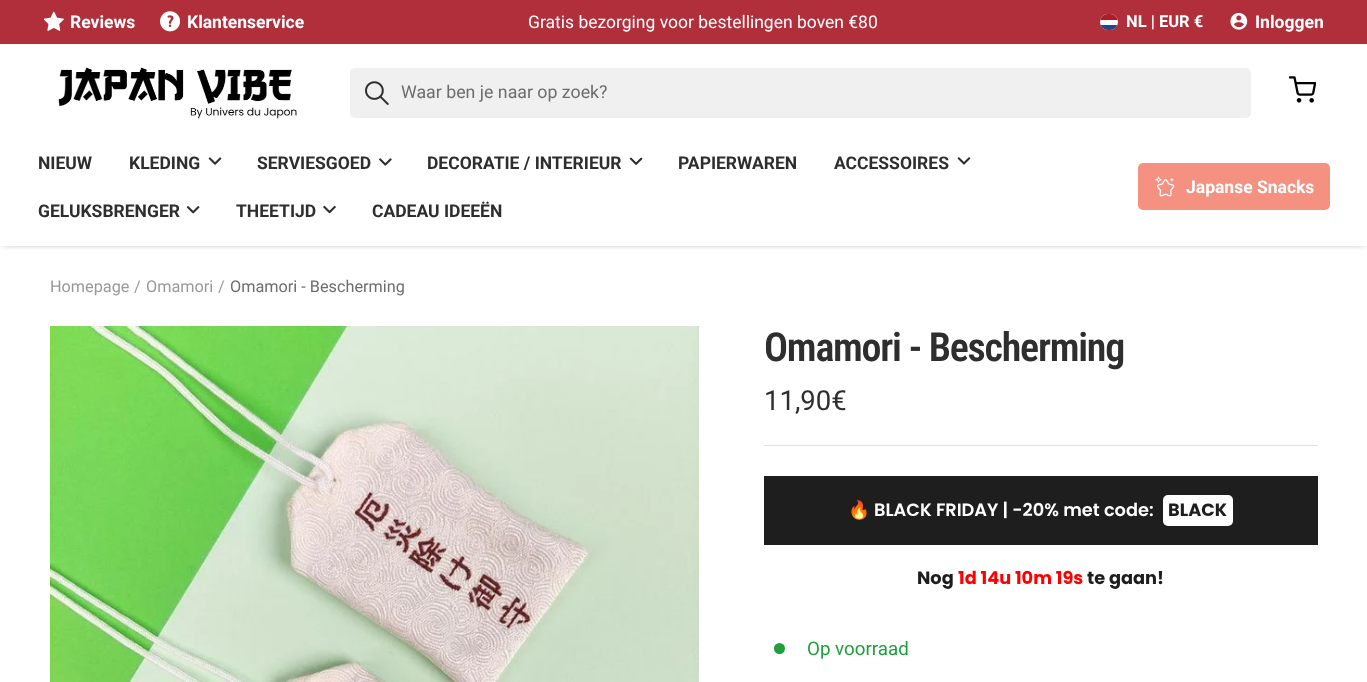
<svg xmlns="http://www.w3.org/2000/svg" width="1367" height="682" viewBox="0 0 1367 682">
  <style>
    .t1 { font: bold 17.5px Roboto; fill: #fff; }
    .t2 { font: 17.5px Roboto; fill: #fff; }
    .t3 { font: bold 16.5px Roboto; fill: #fff; }
    .t4 { font: 17.75px Roboto; fill: #6d6d6d; }
    .t5 { font: bold 17.5px Roboto; fill: #2e2e2e; }
    .t6 { font: 16.25px Roboto; fill: #999; }
    .t7 { font: 16.25px Roboto; fill: #6d6d6d; }
    .t8 { font: 600 40px Roboto Condensed; letter-spacing: -1.25px; fill: #2e2e2e; }
    .t9 { font: 27.5px Roboto; fill: #2e2e2e; }
    .t10 { font: bold 17.75px Noto Color Emoji; fill: #fff; }
    .t11 { font: 600 17.75px Poppins; fill: #fff; }
    .t12 { font: bold 17.75px Poppins; fill: #1e1e1e; }
    .t13 { font: bold 17.75px Poppins; fill: #f00; }
    .t14 { font: 18.75px Roboto; fill: #1e9f3c; }
  </style>
  <defs>
    <clipPath id="clip1"><rect x="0" y="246" width="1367" height="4"/></clipPath>
    <clipPath id="clip2"><rect x="1100" y="14" width="18" height="16" rx="8"/></clipPath>
  </defs>
  <rect width="100%" height="100%" fill="#fff"/>
  <g clip-path="url(#clip1)">
    <rect x="3" y="3" width="1362" height="241" fill="#919191" filter="blur(3px)"/>
  </g>
  <rect x="0" y="0" width="1367" height="44" fill="#b12e3b"/>
  <image x="44" y="11" width="20" height="20" href="images/1.png"/>
  <text x="70" y="28" class="t1">Reviews</text>
  <image x="160" y="11" width="20" height="21" href="images/2.png"/>
  <text x="187" y="28" class="t1">Klantenservice</text>
  <text x="528" y="28" class="t2">Gratis bezorging voor bestellingen boven €80</text>
  <rect x="1100" y="14" width="18" height="16" rx="8" fill="#fff"/>
  <g clip-path="url(#clip2)">
    <rect x="1100" y="25" width="18" height="5" fill="#21468b"/>
    <rect x="1100" y="14" width="18" height="6" fill="#ae1c28"/>
  </g>
  <text x="1126" y="27" class="t3">NL | EUR €</text>
  <image x="1230" y="12" width="18" height="18" href="images/3.png"/>
  <text x="1255" y="28" class="t1">Inloggen</text>
  <image x="58" y="67" width="239" height="52" href="images/4.png"/>
  <rect x="350" y="68" width="901" height="50" rx="5" fill="#f0f0f0"/>
  <image x="365" y="81" width="24" height="24" href="images/5.png"/>
  <text x="401" y="98" class="t4">Waar ben je naar op zoek?</text>
  <image x="1289" y="76" width="27" height="27" href="images/6.png"/>
  <text x="38" y="169" class="t5">NIEUW</text>
  <text x="129" y="169" class="t5">KLEDING</text>
  <image x="208" y="157" width="14" height="8" href="images/7.png"/>
  <text x="257" y="169" class="t5">SERVIESGOED</text>
  <image x="379" y="158" width="13" height="8" href="images/8.png"/>
  <text x="427" y="169" class="t5">DECORATIE / INTERIEUR</text>
  <image x="629" y="157" width="14" height="8" href="images/9.png"/>
  <text x="678" y="169" class="t5">PAPIERWAREN</text>
  <text x="834" y="169" class="t5">ACCESSOIRES</text>
  <image x="957" y="157" width="14" height="8" href="images/10.png"/>
  <text x="38" y="217" class="t5">GELUKSBRENGER</text>
  <image x="186" y="206" width="14" height="8" href="images/11.png"/>
  <text x="236" y="217" class="t5">THEETIJD</text>
  <image x="323" y="205" width="13" height="9" href="images/12.png"/>
  <text x="372" y="217" class="t5">CADEAU IDEEËN</text>
  <rect x="1138" y="163" width="192" height="47" rx="5" fill="#f59181"/>
  <image x="1155" y="176" width="20" height="21" href="images/13.png"/>
  <text x="1186" y="193" class="t1">Japanse Snacks</text>
  <text x="50" y="292" class="t6">Homepage</text>
  <text x="134" y="292" class="t6">/</text>
  <text x="146" y="292" class="t6">Omamori</text>
  <text x="218" y="292" class="t6">/</text>
  <text x="230" y="292" class="t7">Omamori - Bescherming</text>
  <image x="50" y="326" width="649" height="356" href="images/14.png"/>
  <rect x="764" y="445" width="554" height="1" fill="#e0e0e0"/>
  <text x="764" y="361" class="t8">Omamori - Bescherming</text>
  <text x="764" y="410" class="t9">11,90€</text>
  <rect x="764" y="476" width="554" height="69" fill="#1e1e1e"/>
  <text x="848" y="516" class="t10">🔥</text>
  <text x="874" y="516" class="t11">BLACK FRIDAY | -20% met code:</text>
  <rect x="1163" y="495" width="70" height="31" rx="5" fill="#fff"/>
  <text x="1168" y="516" class="t12">BLACK</text>
  <text x="917" y="584" class="t12">Nog</text>
  <text x="958" y="584" class="t13">1d 14u 10m 19s</text>
  <text x="1087" y="584" class="t12">te gaan!</text>
  <circle cx="779.5" cy="648.5" r="5.5" fill="#1e9f3c"/>
  <text x="807" y="655" class="t14">Op voorraad</text>
</svg>
